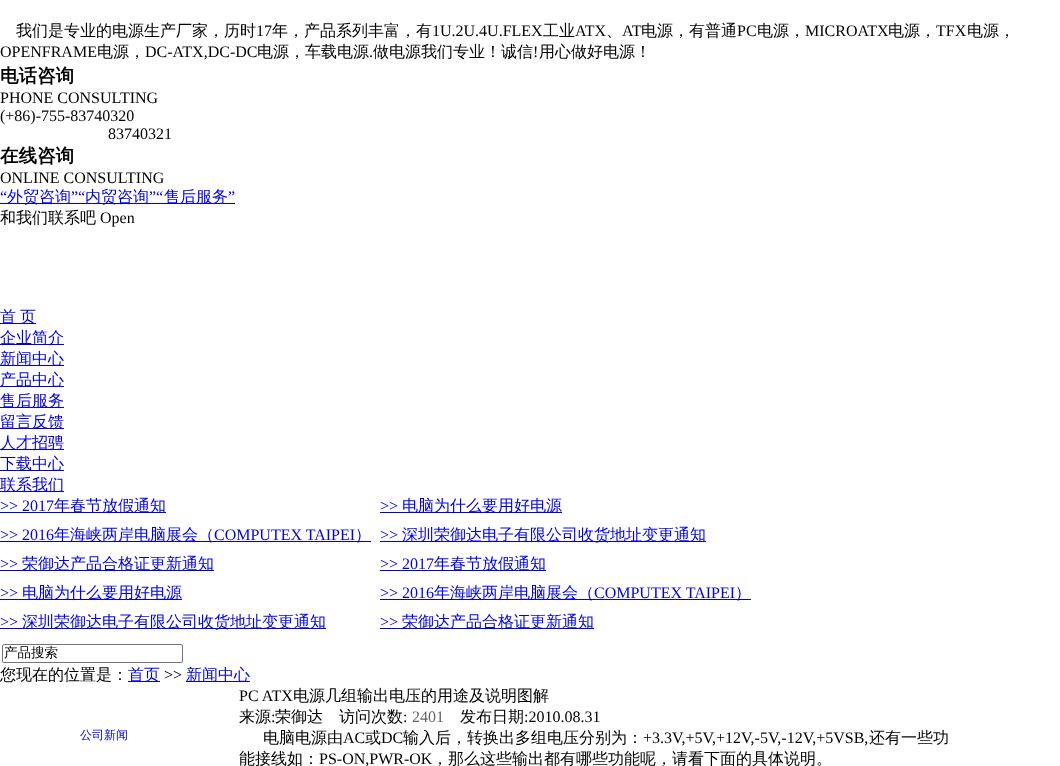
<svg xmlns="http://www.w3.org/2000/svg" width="1060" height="766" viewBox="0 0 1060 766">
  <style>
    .t1 { font: 500 16px WenQuanYi Zen Hei; fill: #000; }
    .t2 { font: 16px Liberation Serif; fill: #000; }
    .t3 { font: bold 18.5px WenQuanYi Zen Hei; fill: #000; }
    .t4 { font: 16px Liberation Serif; fill: #00e; }
    .t5 { font: 500 16px WenQuanYi Zen Hei; fill: #00e; }
    .t6 { font: 500 13.5px WenQuanYi Zen Hei; fill: #000; }
    .t7 { font: 500 12px WenQuanYi Zen Hei; fill: #00e; }
    .t8 { font: 16px Liberation Serif; fill: #666; }
  </style>
  <rect width="100%" height="100%" fill="#fff"/>
  <text x="16" y="36" class="t1">我们是专业的电源生产厂家，历时</text>
  <text x="256" y="36" class="t2">17</text>
  <text x="272" y="36" class="t1">年，产品系列丰富，有</text>
  <text x="432" y="36" class="t2">1U.2U.4U.FLEX</text>
  <text x="543" y="36" class="t1">工业</text>
  <text x="575" y="36" class="t2">ATX</text>
  <text x="606" y="36" class="t1">、</text>
  <text x="622" y="36" class="t2">AT</text>
  <text x="641" y="36" class="t1">电源，有普通</text>
  <text x="737" y="36" class="t2">PC</text>
  <text x="757" y="36" class="t1">电源，</text>
  <text x="805" y="36" class="t2">MICROATX</text>
  <text x="888" y="36" class="t1">电源，</text>
  <text x="936" y="36" class="t2">TFX</text>
  <text x="967" y="36" class="t1">电源，</text>
  <text x="0" y="57" class="t2">OPENFRAME</text>
  <text x="97" y="57" class="t1">电源，</text>
  <text x="145" y="57" class="t2">DC-ATX,DC-DC</text>
  <text x="257" y="57" class="t1">电源，车载电源</text>
  <text x="369" y="57" class="t2">.</text>
  <text x="373" y="57" class="t1">做电源我们专业！诚信</text>
  <text x="533" y="57" class="t2">!</text>
  <text x="539" y="57" class="t1">用心做好电源！</text>
  <text x="0" y="82" class="t3">电话咨询</text>
  <text x="0" y="103" class="t2">PHONE CONSULTING</text>
  <text x="0" y="121" class="t2">(+86)-755-83740320</text>
  <text x="108" y="139" class="t2">83740321</text>
  <text x="0" y="162" class="t3">在线咨询</text>
  <text x="0" y="183" class="t2">ONLINE CONSULTING</text>
  <text x="0" y="202" class="t4">“</text>
  <rect x="0" y="203" width="235" height="1" fill="#00e"/>
  <text x="7" y="202" class="t5">外贸咨询</text>
  <text x="71" y="202" class="t4">”“</text>
  <text x="85" y="202" class="t5">内贸咨询</text>
  <text x="149" y="202" class="t4">”“</text>
  <text x="164" y="202" class="t5">售后服务</text>
  <text x="228" y="202" class="t4">”</text>
  <text x="0" y="223" class="t1">和我们联系吧</text>
  <text x="100" y="223" class="t2">Open</text>
  <rect x="0" y="323" width="36" height="1" fill="#00e"/>
  <text x="0" y="322" class="t5">首</text>
  <text x="20" y="322" class="t5">页</text>
  <rect x="0" y="344" width="64" height="1" fill="#00e"/>
  <text x="0" y="343" class="t5">企业简介</text>
  <rect x="0" y="365" width="64" height="1" fill="#00e"/>
  <text x="0" y="364" class="t5">新闻中心</text>
  <rect x="0" y="386" width="64" height="1" fill="#00e"/>
  <text x="0" y="385" class="t5">产品中心</text>
  <rect x="0" y="407" width="64" height="1" fill="#00e"/>
  <text x="0" y="406" class="t5">售后服务</text>
  <rect x="0" y="428" width="64" height="1" fill="#00e"/>
  <text x="0" y="427" class="t5">留言反馈</text>
  <rect x="0" y="449" width="64" height="1" fill="#00e"/>
  <text x="0" y="448" class="t5">人才招骋</text>
  <rect x="0" y="470" width="64" height="1" fill="#00e"/>
  <text x="0" y="469" class="t5">下载中心</text>
  <rect x="0" y="491" width="64" height="1" fill="#00e"/>
  <text x="0" y="490" class="t5">联系我们</text>
  <text x="0" y="511" class="t4">&gt;&gt; 2017</text>
  <rect x="0" y="512" width="166" height="1" fill="#00e"/>
  <text x="54" y="511" class="t5">年春节放假通知</text>
  <text x="380" y="511" class="t4">&gt;&gt;</text>
  <rect x="380" y="512" width="182" height="1" fill="#00e"/>
  <text x="402" y="511" class="t5">电脑为什么要用好电源</text>
  <text x="0" y="540" class="t4">&gt;&gt; 2016</text>
  <rect x="0" y="541" width="371" height="1" fill="#00e"/>
  <text x="54" y="540" class="t5">年海峡两岸电脑展会（</text>
  <text x="214" y="540" class="t4">COMPUTEX TAIPEI</text>
  <text x="355" y="540" class="t5">）</text>
  <text x="380" y="540" class="t4">&gt;&gt;</text>
  <rect x="380" y="541" width="326" height="1" fill="#00e"/>
  <text x="402" y="540" class="t5">深圳荣御达电子有限公司收货地址变更通知</text>
  <text x="0" y="569" class="t4">&gt;&gt;</text>
  <rect x="0" y="570" width="214" height="1" fill="#00e"/>
  <text x="22" y="569" class="t5">荣御达产品合格证更新通知</text>
  <text x="380" y="569" class="t4">&gt;&gt; 2017</text>
  <rect x="380" y="570" width="166" height="1" fill="#00e"/>
  <text x="434" y="569" class="t5">年春节放假通知</text>
  <text x="0" y="598" class="t4">&gt;&gt;</text>
  <rect x="0" y="599" width="182" height="1" fill="#00e"/>
  <text x="22" y="598" class="t5">电脑为什么要用好电源</text>
  <text x="380" y="598" class="t4">&gt;&gt; 2016</text>
  <rect x="380" y="599" width="371" height="1" fill="#00e"/>
  <text x="434" y="598" class="t5">年海峡两岸电脑展会（</text>
  <text x="594" y="598" class="t4">COMPUTEX TAIPEI</text>
  <text x="735" y="598" class="t5">）</text>
  <text x="0" y="627" class="t4">&gt;&gt;</text>
  <rect x="0" y="628" width="326" height="1" fill="#00e"/>
  <text x="22" y="627" class="t5">深圳荣御达电子有限公司收货地址变更通知</text>
  <text x="380" y="627" class="t4">&gt;&gt;</text>
  <rect x="380" y="628" width="214" height="1" fill="#00e"/>
  <text x="402" y="627" class="t5">荣御达产品合格证更新通知</text>
  <rect x="2.5" y="644.5" width="180" height="18" rx="1.5" fill="none" stroke="#767676"/>
  <text x="4" y="657" class="t6">产品搜索</text>
  <text x="0" y="680" class="t1">您现在的位置是：</text>
  <rect x="128" y="681" width="32" height="1" fill="#00e"/>
  <text x="128" y="680" class="t5">首页</text>
  <text x="164" y="680" class="t2">&gt;&gt;</text>
  <rect x="186" y="681" width="64" height="1" fill="#00e"/>
  <text x="186" y="680" class="t5">新闻中心</text>
  <text x="80" y="739" class="t7">公司新闻</text>
  <text x="239" y="701" class="t2">PC ATX</text>
  <text x="293" y="701" class="t1">电源几组输出电压的用途及说明图解</text>
  <text x="239" y="722" class="t1">来源</text>
  <text x="271" y="722" class="t2">:</text>
  <text x="275" y="722" class="t1">荣御达</text>
  <text x="339" y="722" class="t1">访问次数</text>
  <text x="403" y="722" class="t2">:</text>
  <text x="412" y="722" class="t8">2401</text>
  <text x="460" y="722" class="t1">发布日期</text>
  <text x="524" y="722" class="t2">:2010.08.31</text>
  <text x="263" y="743" class="t1">电脑电源由</text>
  <text x="343" y="743" class="t2">AC</text>
  <text x="365" y="743" class="t1">或</text>
  <text x="381" y="743" class="t2">DC</text>
  <text x="403" y="743" class="t1">输入后，转换出多组电压分别为：</text>
  <text x="643" y="743" class="t2">+3.3V,+5V,+12V,-5V,-12V,+5VSB,</text>
  <text x="869" y="743" class="t1">还有一些功</text>
  <text x="239" y="764" class="t1">能接线如：</text>
  <text x="319" y="764" class="t2">PS-ON,PWR-OK</text>
  <text x="432" y="764" class="t1">，那么这些输出都有哪些功能呢，请看下面的具体说明。</text>
</svg>
